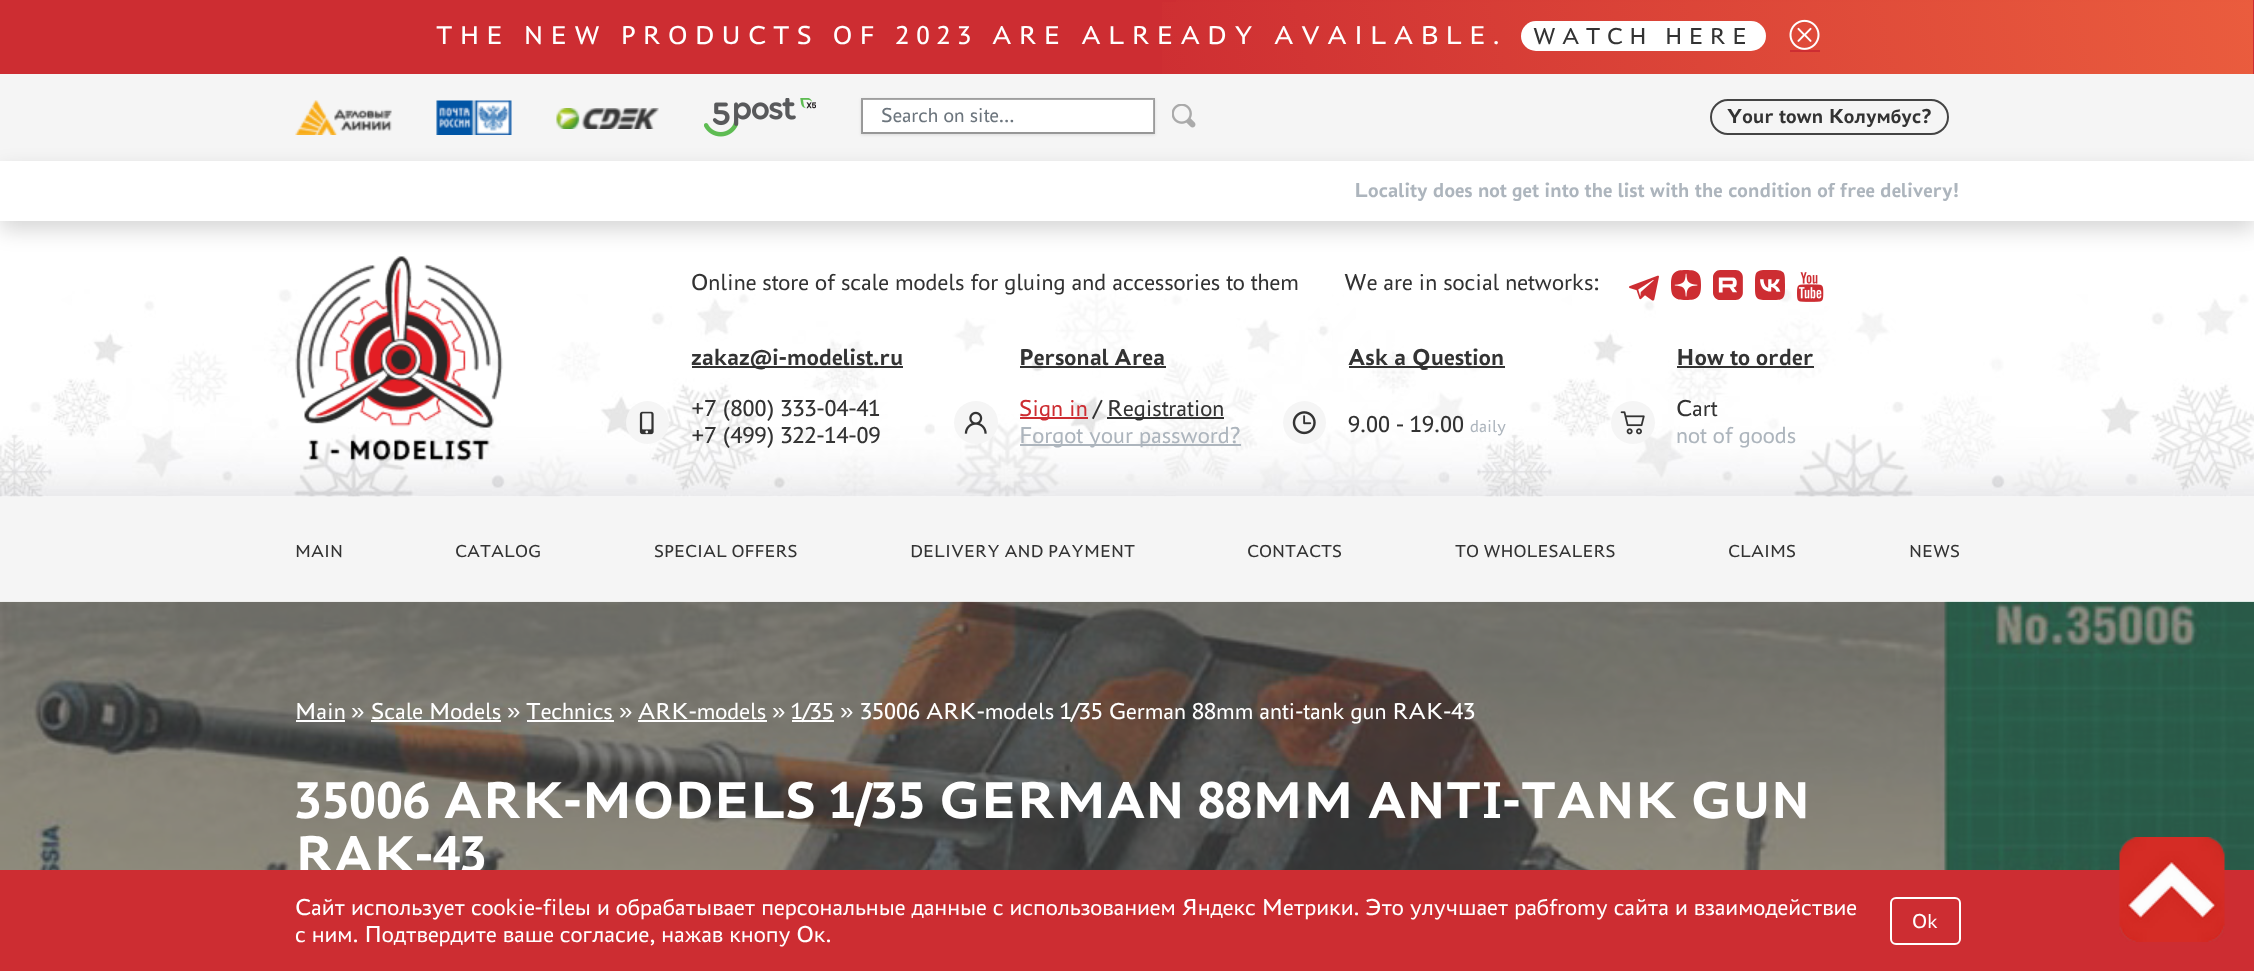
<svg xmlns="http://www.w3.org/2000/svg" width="2254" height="971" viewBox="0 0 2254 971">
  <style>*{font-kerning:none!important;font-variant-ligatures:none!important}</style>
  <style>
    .t1 { font: 27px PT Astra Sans; letter-spacing: 7.15px; fill: #fff; }
    .t2 { font: 24px PT Astra Sans; letter-spacing: 6.4px; fill: #333; }
    .t3 { font: 21px PT Astra Sans; fill: #6c757d; }
    .t4 { font: bold 21px PT Astra Sans; fill: #333; }
    .t5 { font: bold 21px PT Astra Sans; fill: #adb5bd; }
    .t6 { font: 24px PT Astra Sans; fill: #333; }
    .t7 { font: bold 24px PT Astra Sans; fill: #333; }
    .t8 { font: 24px PT Astra Sans; fill: #cd2d32; }
    .t9 { font: 24px PT Astra Sans; fill: #adb5bd; }
    .t10 { font: 18px PT Astra Sans; fill: #adb5bd; }
    .t11 { font: 18px PT Astra Sans; fill: #333; }
    .t12 { font: 24px PT Astra Sans; fill: #fff; }
    .t13 { font: 24px Liberation Sans; fill: #fff; }
    .t14 { font: bold 54px PT Astra Sans; fill: #fff; }
    .t15 { font: 21px PT Astra Sans; fill: #fff; }
  </style>
  <defs>
    <linearGradient id="g1" gradientUnits="userSpaceOnUse" x1="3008" y1="-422" x2="40" y2="190"><stop offset="0" stop-color="#ff7e46"/><stop offset="0.64" stop-color="#cd2d32"/></linearGradient>
    <linearGradient id="g2" gradientUnits="userSpaceOnUse" x1="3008" y1="-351" x2="40" y2="261"><stop offset="0" stop-color="#ff7e46"/><stop offset="0.64" stop-color="#cd2d32"/></linearGradient>
    <linearGradient id="g3" gradientUnits="userSpaceOnUse" x1="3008" y1="-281" x2="40" y2="331"><stop offset="0" stop-color="#ff7e46"/><stop offset="0.64" stop-color="#cd2d32"/></linearGradient>
    <clipPath id="clip1"><path d="M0 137H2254V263H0ZM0 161H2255V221H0Z" clip-rule="evenodd"/></clipPath>
  </defs>
  <rect width="100%" height="100%" fill="#fff"/>
  <rect x="0" y="0" width="2254" height="74" fill="#cd2d32"/>
  <rect x="1176" y="0" width="1077" height="2" fill="url(#g1)"/>
  <rect x="1162" y="2" width="1091" height="70" fill="url(#g2)"/>
  <rect x="1162" y="72" width="1091" height="2" fill="url(#g3)"/>
  <text x="436" y="44" class="t1">THE NEW PRODUCTS OF 2023 ARE ALREADY</text>
  <text x="1274" y="44" class="t1">AVAILABLE.</text>
  <rect x="1521" y="21" width="245" height="30" rx="15" fill="#fff"/>
  <text x="1533" y="44" class="t2">WATCH</text>
  <text x="1665" y="44" class="t2">HERE</text>
  <image x="1789" y="19" width="31" height="31" href="images/1.png"/>
  <rect x="1790" y="50" width="30" height="2" fill="#cd2d32"/>
  <rect x="0" y="74" width="2254" height="87" fill="#f5f5f5"/>
  <image x="295" y="100" width="97" height="35" href="images/2.png"/>
  <image x="436" y="100" width="76" height="35" href="images/3.png"/>
  <image x="556" y="108" width="103" height="21" href="images/4.png"/>
  <image x="704" y="98" width="112" height="39" href="images/5.png"/>
  <rect x="861" y="99" width="294" height="36" fill="#0000001a" filter="blur(1.5px)"/>
  <rect x="863" y="99" width="291" height="33" fill="#fff"/>
  <rect x="862" y="99" width="292" height="34" fill="none" stroke="#44444475" stroke-width="2"/>
  <text x="881" y="122" class="t3">Search on site...</text>
  <image x="1172" y="104" width="24" height="24" href="images/6.png"/>
  <rect x="1711" y="100" width="237" height="34" rx="17" fill="none" stroke="#444" stroke-width="2"/>
  <text x="1727" y="123" class="t4">Your town Колумбус?</text>
  <g clip-path="url(#clip1)">
    <rect x="0" y="170" width="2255" height="60" fill="#00000029" filter="blur(10.5px)"/>
  </g>
  <text x="1354" y="197" class="t5">Locality does not get into the list with the condition of free delivery!</text>
  <image x="0" y="289" width="2254" height="208" href="images/7.png"/>
  <image x="295" y="256" width="208" height="205" href="images/8.png"/>
  <text x="691" y="290" class="t6">Online store of scale models for gluing and accessories to them</text>
  <text x="1344" y="290" class="t6">We are in social networks:</text>
  <image x="1629" y="275" width="30" height="26" href="images/9.png"/>
  <image x="1671" y="270" width="30" height="30" href="images/10.png"/>
  <image x="1713" y="270" width="30" height="30" href="images/11.png"/>
  <image x="1755" y="270" width="30" height="30" href="images/12.png"/>
  <image x="1797" y="272" width="27" height="30" href="images/13.png"/>
  <rect x="692" y="366" width="211" height="2" fill="#333"/>
  <text x="691" y="365" class="t7">zakaz@i-modelist.ru</text>
  <circle cx="647.5" cy="422.5" r="21.5" fill="#f5f5f5"/>
  <image x="639" y="411" width="15" height="24" href="images/14.png"/>
  <text x="691" y="416" class="t6">+7 (800) 333-04-41</text>
  <text x="691" y="443" class="t6">+7 (499) 322-14-09</text>
  <text x="1019" y="365" class="t7">Personal Area</text>
  <rect x="1020" y="366" width="146" height="2" fill="#333"/>
  <rect x="954" y="401" width="44" height="43" rx="21.5" fill="#f5f5f5"/>
  <image x="964" y="411" width="23" height="23" href="images/15.png"/>
  <rect x="1020" y="417" width="68" height="2" fill="#cd2d32"/>
  <text x="1019" y="416" class="t8">Sign in</text>
  <text x="1094" y="416" class="t6">/</text>
  <rect x="1107" y="417" width="117" height="2" fill="#333"/>
  <text x="1107" y="416" class="t6">Registration</text>
  <rect x="1020" y="444" width="221" height="2" fill="#adb5bd"/>
  <text x="1019" y="443" class="t9">Forgot your password?</text>
  <rect x="1349" y="366" width="156" height="2" fill="#333"/>
  <text x="1348" y="365" class="t7">Ask a Question</text>
  <circle cx="1304.5" cy="422.5" r="21.5" fill="#f5f5f5"/>
  <image x="1292" y="411" width="24" height="24" href="images/16.png"/>
  <text x="1348" y="432" class="t6">9.00 - 19.00</text>
  <text x="1470" y="432" class="t10">daily</text>
  <text x="1676" y="365" class="t7">How to order</text>
  <rect x="1677" y="366" width="137" height="2" fill="#333"/>
  <rect x="1611" y="401" width="44" height="43" rx="21.5" fill="#f5f5f5"/>
  <image x="1620" y="411" width="25" height="24" href="images/17.png"/>
  <text x="1676" y="416" class="t6">Cart</text>
  <text x="1676" y="443" class="t9">not of goods</text>
  <rect x="0" y="497" width="2254" height="105" fill="#f5f5f5"/>
  <text x="295" y="557" class="t11">MAIN</text>
  <text x="455" y="557" class="t11">CATALOG</text>
  <text x="654" y="557" class="t11">SPECIAL OFFERS</text>
  <text x="910" y="557" class="t11">DELIVERY AND PAYMENT</text>
  <text x="1247" y="557" class="t11">CONTACTS</text>
  <text x="1455" y="557" class="t11">TO WHOLESALERS</text>
  <text x="1728" y="557" class="t11">CLAIMS</text>
  <text x="1909" y="557" class="t11">NEWS</text>
  <rect x="0" y="602" width="2254" height="268" fill="#454343"/>
  <image x="0" y="601" width="2254" height="269" href="images/18.png"/>
  <text x="295" y="719" class="t12">Main</text>
  <rect x="296" y="720" width="49" height="2" fill="#fff"/>
  <text x="351" y="719" class="t13">»</text>
  <text x="371" y="719" class="t12">Scale Models</text>
  <rect x="371" y="720" width="130" height="2" fill="#fff"/>
  <text x="507" y="719" class="t13">»</text>
  <text x="526" y="719" class="t12">Technics</text>
  <rect x="527" y="720" width="87" height="2" fill="#fff"/>
  <text x="619" y="719" class="t13">»</text>
  <text x="638" y="719" class="t12">ARK-models</text>
  <rect x="638" y="720" width="129" height="2" fill="#fff"/>
  <text x="772" y="719" class="t13">»</text>
  <rect x="792" y="720" width="42" height="2" fill="#fff"/>
  <text x="791" y="719" class="t12">1/35</text>
  <text x="840" y="719" class="t13">»</text>
  <text x="860" y="719" class="t12">35006 ARK-models 1/35 German 88mm anti-tank gun RAK-43</text>
  <text x="295" y="818" class="t14">35006 ARK-MODELS 1/35 GERMAN 88MM ANTI-TANK</text>
  <text x="1690" y="818" class="t14">GUN</text>
  <text x="295" y="872" class="t14">RAK-43</text>
  <rect x="0" y="870" width="2254" height="101" fill="#cd2d32"/>
  <text x="295" y="915" class="t12">Сайт использует cookie-fileы и обрабатывает персональные данные с использованием Яндекс Метрики. Это улучшает рабfromу сайта и взаимодействие</text>
  <text x="295" y="942" class="t12">с ним. Подтвердите ваше согласие, нажав кнопу Ок.</text>
  <rect x="1891" y="898" width="69" height="46" rx="5" fill="none" stroke="#fff" stroke-width="2"/>
  <text x="1912" y="928" class="t15">Ok</text>
  <image x="2119" y="837" width="106" height="105" href="images/19.png"/>
</svg>
